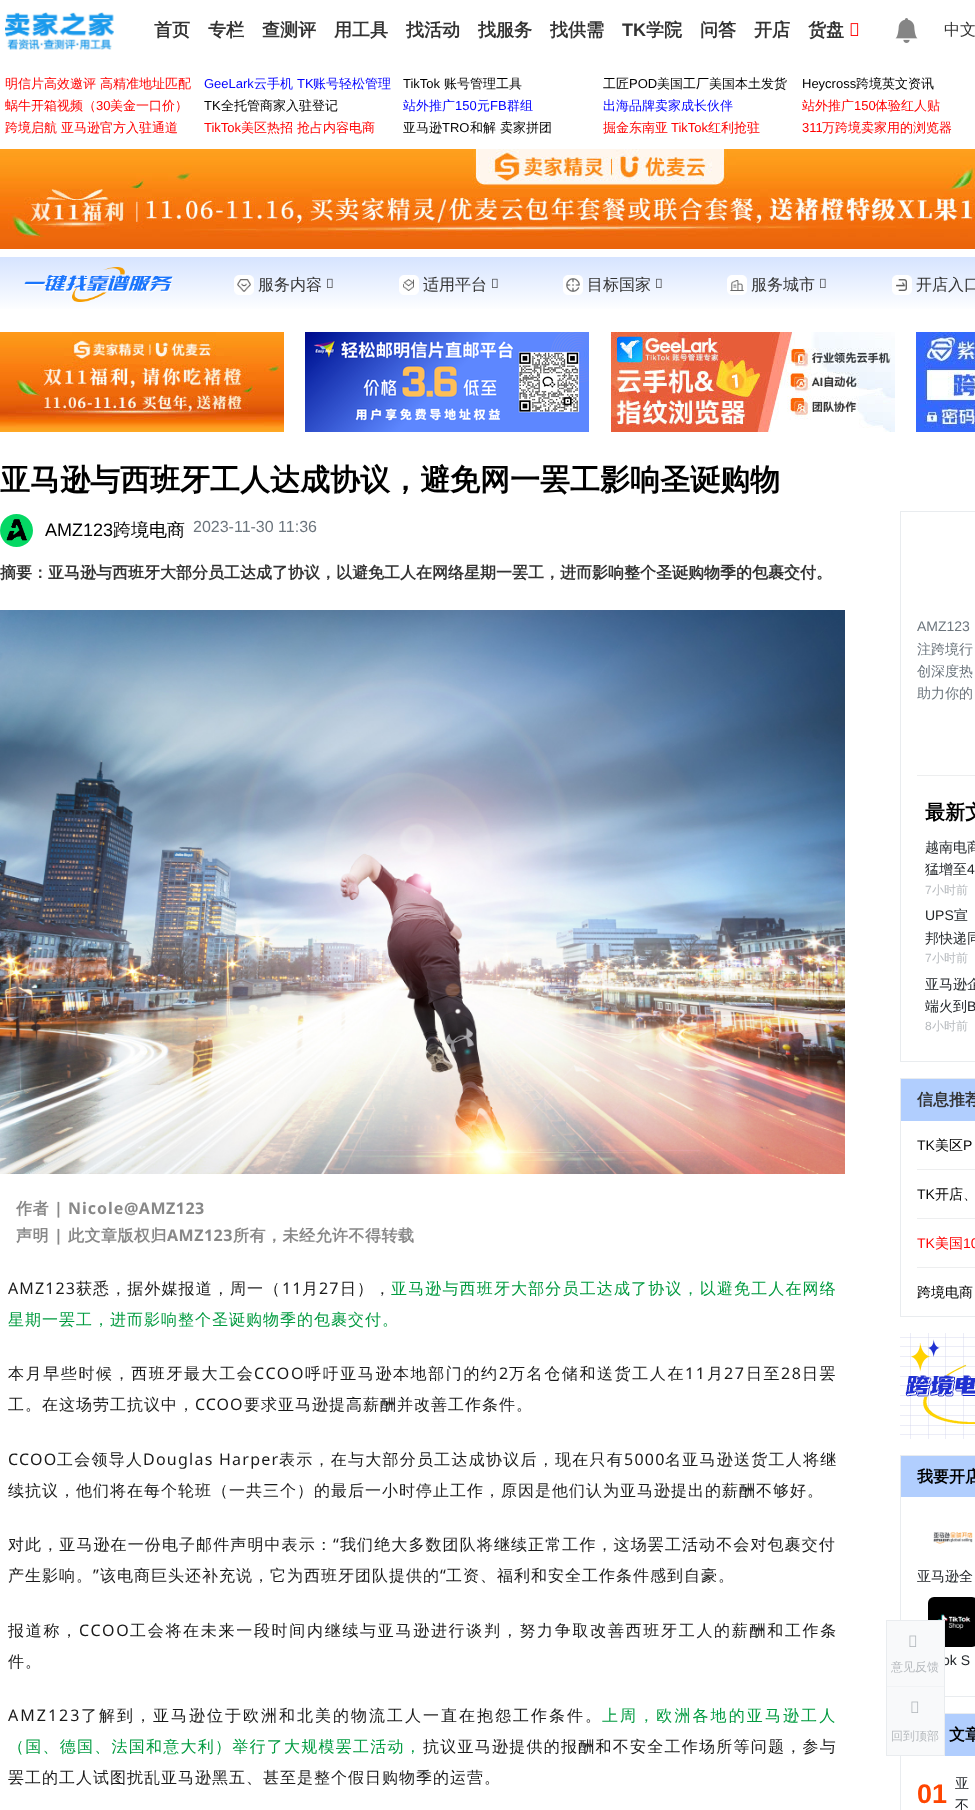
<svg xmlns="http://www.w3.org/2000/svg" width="975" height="1810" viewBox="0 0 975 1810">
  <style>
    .t1 { font: bold 18px WenQuanYi Zen Hei; fill: #333; }
    .t2 { font: bold 18px Liberation Sans; fill: #333; }
    .t3 { font: 500 16px WenQuanYi Zen Hei; fill: #333; }
    .t4 { font: 500 13px WenQuanYi Zen Hei; fill: #f00; }
    .t5 { font: 13px Liberation Sans; fill: #00f; }
    .t6 { font: 500 13px WenQuanYi Zen Hei; fill: #00f; }
    .t7 { font: 13px Liberation Sans; fill: #000; }
    .t8 { font: 500 13px WenQuanYi Zen Hei; fill: #000; }
    .t9 { font: 13px Liberation Sans; fill: #f00; }
    .t10 { font: bold 30px WenQuanYi Zen Hei; fill: #000; }
    .t11 { font: 18px Liberation Sans; fill: #000; }
    .t12 { font: 500 18px WenQuanYi Zen Hei; fill: #000; }
    .t13 { font: 16px Liberation Sans; fill: #6c757d; }
    .t14 { font: bold 16px WenQuanYi Zen Hei; fill: #333; }
    .t15 { font: bold 16px WenQuanYi Zen Hei; letter-spacing: 0.5px; fill: #888; }
    .t16 { font: bold 16px Noto Sans; letter-spacing: 0.5px; fill: #888; }
    .t17 { font: bold 16px Noto Sans; letter-spacing: 1px; fill: #888; }
    .t18 { font: 16px Noto Sans; letter-spacing: 1.1px; fill: #1a1a1a; }
    .t19 { font: 500 16px WenQuanYi Zen Hei; letter-spacing: 1.1px; fill: #1a1a1a; }
    .t20 { font: 500 16px WenQuanYi Zen Hei; letter-spacing: 1.15px; fill: #029b40; }
    .t21 { font: 500 16px WenQuanYi Zen Hei; letter-spacing: 1px; fill: #029b40; }
    .t22 { font: 500 16px WenQuanYi Zen Hei; letter-spacing: 1.6px; fill: #1a1a1a; }
    .t23 { font: 16px Noto Sans; letter-spacing: 1.6px; fill: #1a1a1a; }
    .t24 { font: 500 16px WenQuanYi Zen Hei; letter-spacing: 1px; fill: #1a1a1a; }
    .t25 { font: 16px Noto Sans; letter-spacing: 1px; fill: #1a1a1a; }
    .t26 { font: 16px Noto Sans; letter-spacing: 1.25px; fill: #1a1a1a; }
    .t27 { font: 500 16px WenQuanYi Zen Hei; letter-spacing: 1.25px; fill: #1a1a1a; }
    .t28 { font: 500 16px WenQuanYi Zen Hei; letter-spacing: 1.7px; fill: #1a1a1a; }
    .t29 { font: 16px Noto Sans; letter-spacing: 1.7px; fill: #1a1a1a; }
    .t30 { font: 16px Noto Sans; letter-spacing: 2px; fill: #1a1a1a; }
    .t31 { font: 500 16px WenQuanYi Zen Hei; letter-spacing: 2px; fill: #1a1a1a; }
    .t32 { font: 500 16px WenQuanYi Zen Hei; letter-spacing: 2.1px; fill: #029b40; }
    .t33 { font: 500 16px WenQuanYi Zen Hei; letter-spacing: 1.25px; fill: #029b40; }
    .t34 { font: 14px Liberation Sans; fill: #6c757d; }
    .t35 { font: 500 14px WenQuanYi Zen Hei; fill: #6c757d; }
    .t36 { font: bold 20px WenQuanYi Zen Hei; fill: #000; }
    .t37 { font: 500 14px WenQuanYi Zen Hei; fill: #212529; }
    .t38 { font: 14px Liberation Sans; fill: #212529; }
    .t39 { font: 12px Liberation Sans; fill: #b6babe; }
    .t40 { font: 500 12px WenQuanYi Zen Hei; fill: #b6babe; }
    .t41 { font: 14px Liberation Sans; fill: #000; }
    .t42 { font: 500 14px WenQuanYi Zen Hei; fill: #000; }
    .t43 { font: 14px Liberation Sans; fill: #f00; }
    .t44 { font: 500 14px WenQuanYi Zen Hei; fill: #f00; }
    .t45 { font: bold 16px WenQuanYi Zen Hei; fill: #000; }
    .t46 { font: bold 27px Liberation Sans; fill: #ff4500; }
  </style>
  <defs>
    <linearGradient id="g1" gradientUnits="userSpaceOnUse" x1="600" y1="257" x2="600" y2="312"><stop offset="0" stop-color="#d6e4ff"/><stop offset="1" stop-color="#fff"/></linearGradient>
  </defs>
  <rect width="100%" height="100%" fill="#fff"/>
  <image x="5" y="12" width="109" height="38" href="images/1.png"/>
  <text x="154" y="36" class="t1">首页</text>
  <text x="208" y="36" class="t1">专栏</text>
  <text x="262" y="36" class="t1">查测评</text>
  <text x="334" y="36" class="t1">用工具</text>
  <text x="406" y="36" class="t1">找活动</text>
  <text x="478" y="36" class="t1">找服务</text>
  <text x="550" y="36" class="t1">找供需</text>
  <text x="622" y="36" class="t2">TK</text>
  <text x="646" y="36" class="t1">学院</text>
  <text x="700" y="36" class="t1">问答</text>
  <text x="754" y="36" class="t1">开店</text>
  <text x="808" y="36" class="t1">货盘</text>
  <image x="850" y="23" width="9" height="13" href="images/2.png"/>
  <image x="895" y="18" width="23" height="25" href="images/3.png"/>
  <text x="944" y="35" class="t3">中文</text>
  <text x="5" y="88" class="t4">明信片高效邀评 高精准地址匹配</text>
  <text x="204" y="88" class="t5">GeeLark</text>
  <text x="254" y="88" class="t6">云手机</text>
  <text x="297" y="88" class="t5">TK</text>
  <text x="313" y="88" class="t6">账号轻松管理</text>
  <text x="403" y="88" class="t7">TikTok</text>
  <text x="444" y="88" class="t8">账号管理工具</text>
  <text x="603" y="88" class="t8">工匠</text>
  <text x="629" y="88" class="t7">POD</text>
  <text x="657" y="88" class="t8">美国工厂美国本土发货</text>
  <text x="802" y="88" class="t7">Heycross</text>
  <text x="856" y="88" class="t8">跨境英文资讯</text>
  <text x="5" y="110" class="t4">蜗牛开箱视频（</text>
  <text x="96" y="110" class="t9">30</text>
  <text x="110" y="110" class="t4">美金一口价）</text>
  <text x="204" y="110" class="t7">TK</text>
  <text x="221" y="110" class="t8">全托管商家入驻登记</text>
  <text x="403" y="110" class="t6">站外推广</text>
  <text x="455" y="110" class="t5">150</text>
  <text x="477" y="110" class="t6">元</text>
  <text x="490" y="110" class="t5">FB</text>
  <text x="507" y="110" class="t6">群组</text>
  <text x="603" y="110" class="t6">出海品牌卖家成长伙伴</text>
  <text x="802" y="110" class="t4">站外推广</text>
  <text x="854" y="110" class="t9">150</text>
  <text x="875" y="110" class="t4">体验红人贴</text>
  <text x="5" y="132" class="t4">跨境启航 亚马逊官方入驻通道</text>
  <text x="204" y="132" class="t9">TikTok</text>
  <text x="241" y="132" class="t4">美区热招 抢占内容电商</text>
  <text x="403" y="132" class="t8">亚马逊</text>
  <text x="442" y="132" class="t7">TRO</text>
  <text x="470" y="132" class="t8">和解 卖家拼团</text>
  <text x="603" y="132" class="t4">掘金东南亚</text>
  <text x="671" y="132" class="t9">TikTok</text>
  <text x="708" y="132" class="t4">红利抢驻</text>
  <text x="802" y="132" class="t9">311</text>
  <text x="822" y="132" class="t4">万跨境卖家用的浏览器</text>
  <image x="0" y="149" width="975" height="100" href="images/4.png"/>
  <rect x="0" y="257" width="975" height="52" fill="url(#g1)"/>
  <image x="24" y="267" width="150" height="35" href="images/5.png"/>
  <image x="234" y="275" width="20" height="20" href="images/6.png"/>
  <text x="258" y="290" class="t3">服务内容</text>
  <image x="327" y="278" width="6" height="10" href="images/7.png"/>
  <image x="399" y="275" width="20" height="20" href="images/8.png"/>
  <text x="423" y="290" class="t3">适用平台</text>
  <image x="492" y="278" width="6" height="10" href="images/7.png"/>
  <image x="563" y="275" width="20" height="20" href="images/9.png"/>
  <text x="587" y="290" class="t3">目标国家</text>
  <image x="656" y="278" width="6" height="10" href="images/7.png"/>
  <image x="727" y="275" width="20" height="20" href="images/10.png"/>
  <text x="751" y="290" class="t3">服务城市</text>
  <image x="820" y="278" width="6" height="10" href="images/7.png"/>
  <image x="892" y="275" width="20" height="20" href="images/11.png"/>
  <text x="916" y="290" class="t3">开店入口</text>
  <image x="0" y="332" width="284" height="100" href="images/12.png"/>
  <image x="305" y="332" width="284" height="100" href="images/13.png"/>
  <image x="611" y="332" width="284" height="100" href="images/14.png"/>
  <image x="916" y="332" width="59" height="100" href="images/15.png"/>
  <text x="0" y="490" class="t10">亚马逊与西班牙工人达成协议，避免网一罢工影响圣诞购物</text>
  <image x="0" y="514" width="33" height="33" href="images/16.png"/>
  <text x="45" y="536" class="t11">AMZ123</text>
  <text x="113" y="536" class="t12">跨境电商</text>
  <text x="193" y="532" class="t13">2023-11-30 11:36</text>
  <text x="0" y="578" class="t14">摘要：亚马逊与西班牙大部分员工达成了协议，以避免工人在网络星期一罢工，进而影响整个圣诞购物季的包裹交付。</text>
  <image x="0" y="610" width="845" height="564" href="images/17.png"/>
  <text x="16" y="1214" class="t15">作者</text>
  <text x="54" y="1214" class="t16">|</text>
  <text x="68" y="1214" class="t17">Nicole</text>
  <text x="124" y="1214" class="t16">@AMZ123</text>
  <text x="16" y="1241" class="t15">声明</text>
  <text x="54" y="1241" class="t16">|</text>
  <text x="68" y="1241" class="t15">此文章版权归</text>
  <text x="167" y="1241" class="t16">AMZ123</text>
  <text x="233" y="1241" class="t15">所有，未经允许不得转载</text>
  <text x="8" y="1294" class="t18">AMZ123</text>
  <text x="76" y="1294" class="t19">获悉，据外媒报道，周一（</text>
  <text x="282" y="1294" class="t18">11</text>
  <text x="302" y="1294" class="t19">月</text>
  <text x="319" y="1294" class="t18">27</text>
  <text x="340" y="1294" class="t19">日），</text>
  <text x="391" y="1294" class="t20">亚马逊与西班牙大部分员工达成了协议，以避免工人在网络</text>
  <text x="8" y="1325" class="t21">星期一罢工，进而影响整个圣诞购物季的包裹交付。</text>
  <text x="8" y="1379" class="t22">本月早些时候，西班牙最大工会</text>
  <text x="254" y="1379" class="t23">CCOO</text>
  <text x="305" y="1379" class="t22">呼吁亚马逊本地部门的约</text>
  <text x="499" y="1379" class="t23">2</text>
  <text x="509" y="1379" class="t22">万名仓储和送货工人在</text>
  <text x="685" y="1379" class="t23">11</text>
  <text x="707" y="1379" class="t22">月</text>
  <text x="724" y="1379" class="t23">27</text>
  <text x="746" y="1379" class="t22">日至</text>
  <text x="781" y="1379" class="t23">28</text>
  <text x="802" y="1379" class="t22">日罢</text>
  <text x="8" y="1410" class="t24">工。在这场劳工抗议中，</text>
  <text x="195" y="1410" class="t25">CCOO</text>
  <text x="244" y="1410" class="t24">要求亚马逊提高薪酬并改善工作条件。</text>
  <text x="8" y="1465" class="t26">CCOO</text>
  <text x="57" y="1465" class="t27">工会领导人</text>
  <text x="143" y="1465" class="t26">Douglas Harper</text>
  <text x="279" y="1465" class="t27">表示，在与大部分员工达成协议后，现在只有</text>
  <text x="624" y="1465" class="t26">5000</text>
  <text x="665" y="1465" class="t27">名亚马逊送货工人将继</text>
  <text x="8" y="1496" class="t24">续抗议，他们将在每个轮班（一共三个）的最后一小时停止工作，原因是他们认为亚马逊提出的薪酬不够好。</text>
  <text x="8" y="1550" class="t19">对此，亚马逊在一份电子邮件声明中表示：</text>
  <text x="333" y="1550" class="t18">“</text>
  <text x="340" y="1550" class="t19">我们绝大多数团队将继续正常工作，这场罢工活动不会对包裹交付</text>
  <text x="8" y="1581" class="t24">产生影响。</text>
  <text x="93" y="1581" class="t25">”</text>
  <text x="100" y="1581" class="t24">该电商巨头还补充说，它为西班牙团队提供的</text>
  <text x="440" y="1581" class="t25">“</text>
  <text x="446" y="1581" class="t24">工资、福利和安全工作条件感到自豪。</text>
  <text x="8" y="1636" class="t28">报道称，</text>
  <text x="79" y="1636" class="t29">CCOO</text>
  <text x="130" y="1636" class="t28">工会将在未来一段时间内继续与亚马逊进行谈判，努力争取改善西班牙工人的薪酬和工作条</text>
  <text x="8" y="1667" class="t24">件。</text>
  <text x="8" y="1721" class="t30">AMZ123</text>
  <text x="81" y="1721" class="t31">了解到，亚马逊位于欧洲和北美的物流工人一直在抱怨工作条件。</text>
  <text x="602" y="1721" class="t32">上周，欧洲各地的亚马逊工人</text>
  <text x="8" y="1752" class="t33">（国、德国、法国和意大利）举行了大规模罢工活动，</text>
  <text x="423" y="1752" class="t27">抗议亚马逊提供的报酬和不安全工作场所等问题，参与</text>
  <text x="8" y="1783" class="t24">罢工的工人试图扰乱亚马逊黑五、甚至是整个假日购物季的运营。</text>
  <rect x="900.5" y="511.5" width="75" height="550" fill="none" stroke="#e9ecef"/>
  <text x="917" y="631" class="t34">AMZ123</text>
  <text x="917" y="654" class="t35">注跨境行</text>
  <text x="917" y="676" class="t35">创深度热</text>
  <text x="917" y="698" class="t35">助力你的</text>
  <rect x="917" y="775" width="58" height="1" fill="#edeeef"/>
  <text x="925" y="819" class="t36">最新文</text>
  <text x="925" y="852" class="t37">越南电商</text>
  <text x="925" y="874" class="t37">猛增至</text>
  <text x="967" y="874" class="t38">4</text>
  <text x="925" y="894" class="t39">7</text>
  <text x="932" y="894" class="t40">小时前</text>
  <text x="925" y="920" class="t38">UPS</text>
  <text x="954" y="920" class="t37">宣</text>
  <text x="925" y="943" class="t37">邦快递同</text>
  <text x="925" y="962" class="t39">7</text>
  <text x="932" y="962" class="t40">小时前</text>
  <text x="925" y="989" class="t37">亚马逊企</text>
  <text x="925" y="1011" class="t37">端火到</text>
  <text x="967" y="1011" class="t38">B</text>
  <text x="925" y="1030" class="t39">8</text>
  <text x="932" y="1030" class="t40">小时前</text>
  <rect x="900.5" y="1078.5" width="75" height="238" fill="none" stroke="#e9ecef"/>
  <rect x="901" y="1079" width="74" height="42" fill="#b1cefe"/>
  <text x="917" y="1105" class="t14">信息推荐</text>
  <text x="917" y="1150" class="t41">TK</text>
  <text x="935" y="1150" class="t42">美区</text>
  <text x="963" y="1150" class="t41">P</text>
  <rect x="917" y="1169" width="58" height="1" fill="#edeeef"/>
  <text x="917" y="1199" class="t41">TK</text>
  <text x="935" y="1199" class="t42">开店、</text>
  <rect x="917" y="1218" width="58" height="1" fill="#edeeef"/>
  <text x="917" y="1248" class="t43">TK</text>
  <text x="935" y="1248" class="t44">美国</text>
  <text x="963" y="1248" class="t43">10</text>
  <rect x="917" y="1267" width="58" height="1" fill="#edeeef"/>
  <text x="917" y="1297" class="t42">跨境电商</text>
  <image x="900" y="1333" width="75" height="106" href="images/18.png"/>
  <rect x="900.5" y="1455.5" width="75" height="241" fill="none" stroke="#e9ecef"/>
  <rect x="901" y="1456" width="74" height="41" fill="#b1cefe"/>
  <text x="917" y="1482" class="t45">我要开店</text>
  <image x="933" y="1532" width="40" height="12" href="images/19.png"/>
  <text x="917" y="1581" class="t37">亚马逊全</text>
  <image x="928" y="1597" width="47" height="50" href="images/20.png"/>
  <text x="942" y="1665" class="t38">ok S</text>
  <rect x="900.5" y="1713.5" width="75" height="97" fill="none" stroke="#e9ecef"/>
  <rect x="945" y="1714" width="30" height="42" fill="#b1cefe"/>
  <text x="949" y="1740" class="t45">文章</text>
  <text x="917" y="1803" class="t46">01</text>
  <text x="955" y="1788" class="t37">亚</text>
  <text x="955" y="1810" class="t37">不</text>
  <rect x="886.5" y="1620.5" width="58" height="135" fill="#f8f9fa" stroke="#e9ecef"/>
  <rect x="887" y="1686" width="57" height="1" fill="#f1f3f5"/>
  <image x="909" y="1635" width="8" height="12" href="images/21.png"/>
  <text x="891" y="1671" class="t40">意见反馈</text>
  <image x="911" y="1701" width="8" height="12" href="images/21.png"/>
  <text x="891" y="1740" class="t40">回到顶部</text>
</svg>
